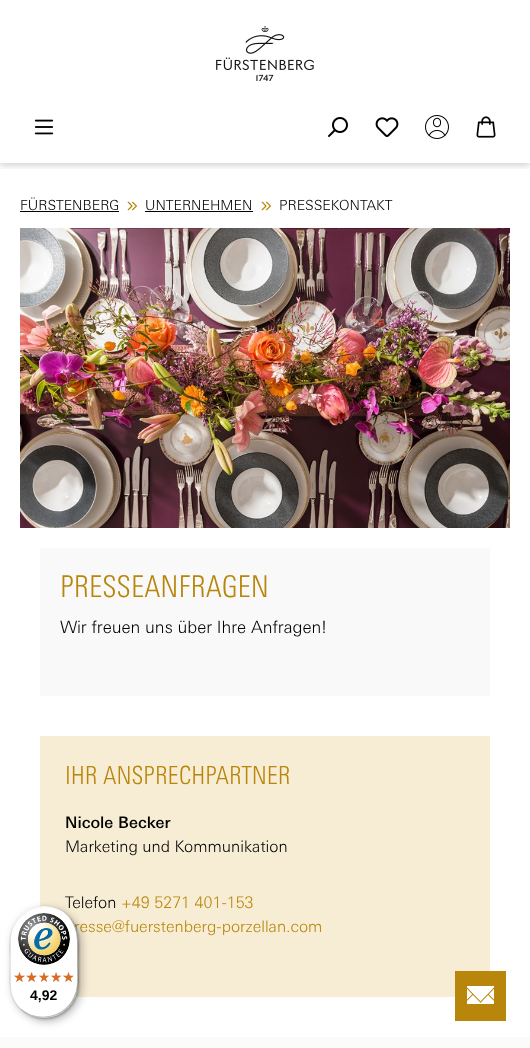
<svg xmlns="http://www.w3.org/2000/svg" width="530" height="1048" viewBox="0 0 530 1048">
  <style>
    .t1 { font: 300 14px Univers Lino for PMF; fill: #000; }
    .t2 { font: 300 30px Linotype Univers; fill: #b8860b; }
    .t3 { font: 300 17px Univers Lino for PMF; fill: #000; }
    .t4 { font: 300 25px Linotype Univers; fill: #b8860b; }
    .t5 { font: 500 16px Univers Lino for PMF; fill: #000; }
    .t6 { font: 300 16px Univers Lino for PMF; fill: #000; }
    .t7 { font: 300 16px Univers Lino for PMF; fill: #b8860b; }
    .t8 { font: bold 14px Liberation Sans; fill: #000; }
  </style>
  <defs>
    <clipPath id="clip1"><rect x="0" y="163" width="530" height="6"/></clipPath>
  </defs>
  <rect width="100%" height="100%" fill="#fff"/>
  <g clip-path="url(#clip1)">
    <rect x="0" y="3" width="530" height="163" fill="#00000029" filter="blur(3px)"/>
  </g>
  <image x="216" y="26" width="98" height="55" href="images/1.png"/>
  <image x="34" y="119" width="20" height="16" href="images/2.png"/>
  <image x="328" y="117" width="20" height="20" href="images/3.png"/>
  <image x="375" y="117" width="24" height="20" href="images/4.png"/>
  <image x="425" y="115" width="24" height="24" href="images/5.png"/>
  <image x="476" y="116" width="20" height="22" href="images/6.png"/>
  <text x="20" y="210" class="t1">FÜRSTENBERG</text>
  <rect x="20" y="211" width="99" height="1" fill="#000"/>
  <image x="127" y="201" width="10" height="10" href="images/7.png"/>
  <text x="145" y="210" class="t1">UNTERNEHMEN</text>
  <rect x="145" y="211" width="108" height="1" fill="#000"/>
  <image x="261" y="201" width="10" height="10" href="images/7.png"/>
  <text x="279" y="210" class="t1">PRESSEKONTAKT</text>
  <image x="20" y="228" width="490" height="300" href="images/8.png"/>
  <rect x="40" y="548" width="450" height="148" fill="#f9f9f9"/>
  <text x="60" y="597" class="t2">PRESSEANFRAGEN</text>
  <text x="60" y="633" class="t3">Wir freuen uns über Ihre Anfragen!</text>
  <rect x="40" y="736" width="450" height="261" fill="#f7edd5"/>
  <text x="65" y="784" class="t4">IHR ANSPRECHPARTNER</text>
  <text x="65" y="828" class="t5">Nicole Becker</text>
  <text x="65" y="852" class="t6">Marketing und Kommunikation</text>
  <text x="65" y="908" class="t6">Telefon</text>
  <text x="121" y="908" class="t7">+49 5271 401-153</text>
  <text x="74" y="932" class="t7">resse@fuerstenberg-porzellan.com</text>
  <rect x="13" y="909" width="68" height="112" rx="34" fill="#00000026" filter="blur(4px)"/>
  <rect x="11" y="907" width="68" height="112" rx="34" fill="#00000026" filter="blur(1px)"/>
  <path d="M45 907C53 907 61 910 67 915C50 900 22 906 13 927C8 937 10 951 10 962C10 977 7 994 19 1007C14 1001 11 993 11 985V941C11 922 26 907 45 907Z" fill="#e5e5e5"/>
  <path d="M21 1009C38 1024 66 1018 75 997C80 987 78 973 78 962C78 947 81 930 69 917C79 930 77 946 77 961C77 972 79 986 74 996C66 1017 38 1023 21 1009Z" fill="#00000033"/>
  <path d="M17 1005C24 1013 33 1018 44 1018C63 1018 78 1003 78 984V940C78 929 73 920 65 913C72 920 77 929 77 939V983C77 1002 62 1017 43 1017C33 1017 24 1012 17 1005Z" fill="#32323233"/>
  <path d="M44 906C63 906 78 921 78 940C78 921 62 906 44 906ZM78 984C78 1002 62 1018 44 1018C63 1018 78 1003 78 984ZM44 1018C25 1018 10 1002 10 984C10 1003 25 1018 44 1018Z" fill="#ffffff4d" fill-rule="evenodd"/>
  <rect x="455" y="971" width="51" height="50" fill="#b8860b"/>
  <image x="467" y="986" width="27" height="18" href="images/9.png"/>
  <rect x="13" y="909" width="68" height="112" rx="34" fill="#00000026" filter="blur(4px)"/>
  <rect x="11" y="907" width="68" height="112" rx="34" fill="#00000026" filter="blur(1px)"/>
  <rect x="10" y="906" width="68" height="112" rx="34" fill="#fff"/>
  <path d="M45 907C53 907 61 910 67 915C50 900 22 906 13 927C8 937 10 951 10 962C10 977 7 994 19 1007C14 1001 11 993 11 985V941C11 922 26 907 45 907Z" fill="#0000001a"/>
  <path d="M21 1009C38 1024 66 1018 75 997C80 987 78 973 78 962C78 947 81 930 69 917C79 930 77 946 77 961C77 972 79 986 74 996C66 1017 38 1023 21 1009Z" fill="#00000033"/>
  <path d="M17 1005C24 1013 33 1018 44 1018C63 1018 78 1003 78 984V940C78 929 73 920 65 913C72 920 77 929 77 939V983C77 1002 62 1017 43 1017C33 1017 24 1012 17 1005Z" fill="#32323233"/>
  <path d="M44 906C63 906 78 921 78 940C78 921 62 906 44 906ZM78 984C78 1002 62 1018 44 1018C63 1018 78 1003 78 984ZM44 1018C25 1018 10 1002 10 984C10 1003 25 1018 44 1018Z" fill="#ffffff4d" fill-rule="evenodd"/>
  <image x="18" y="913" width="52" height="52" href="images/10.png"/>
  <image x="14" y="972" width="11" height="10" href="images/11.png"/>
  <image x="27" y="972" width="10" height="10" href="images/12.png"/>
  <image x="39" y="972" width="10" height="10" href="images/13.png"/>
  <image x="51" y="972" width="11" height="10" href="images/14.png"/>
  <image x="63" y="972" width="11" height="10" href="images/14.png"/>
  <image x="14" y="972" width="11" height="10" href="images/15.png"/>
  <image x="26" y="972" width="11" height="10" href="images/16.png"/>
  <image x="39" y="972" width="10" height="10" href="images/17.png"/>
  <image x="51" y="972" width="10" height="10" href="images/18.png"/>
  <image x="63" y="972" width="10" height="10" href="images/19.png"/>
  <text x="30" y="1000" class="t8">4,92</text>
  <rect x="0" y="1037" width="530" height="11" fill="#fbfbfb"/>
</svg>
